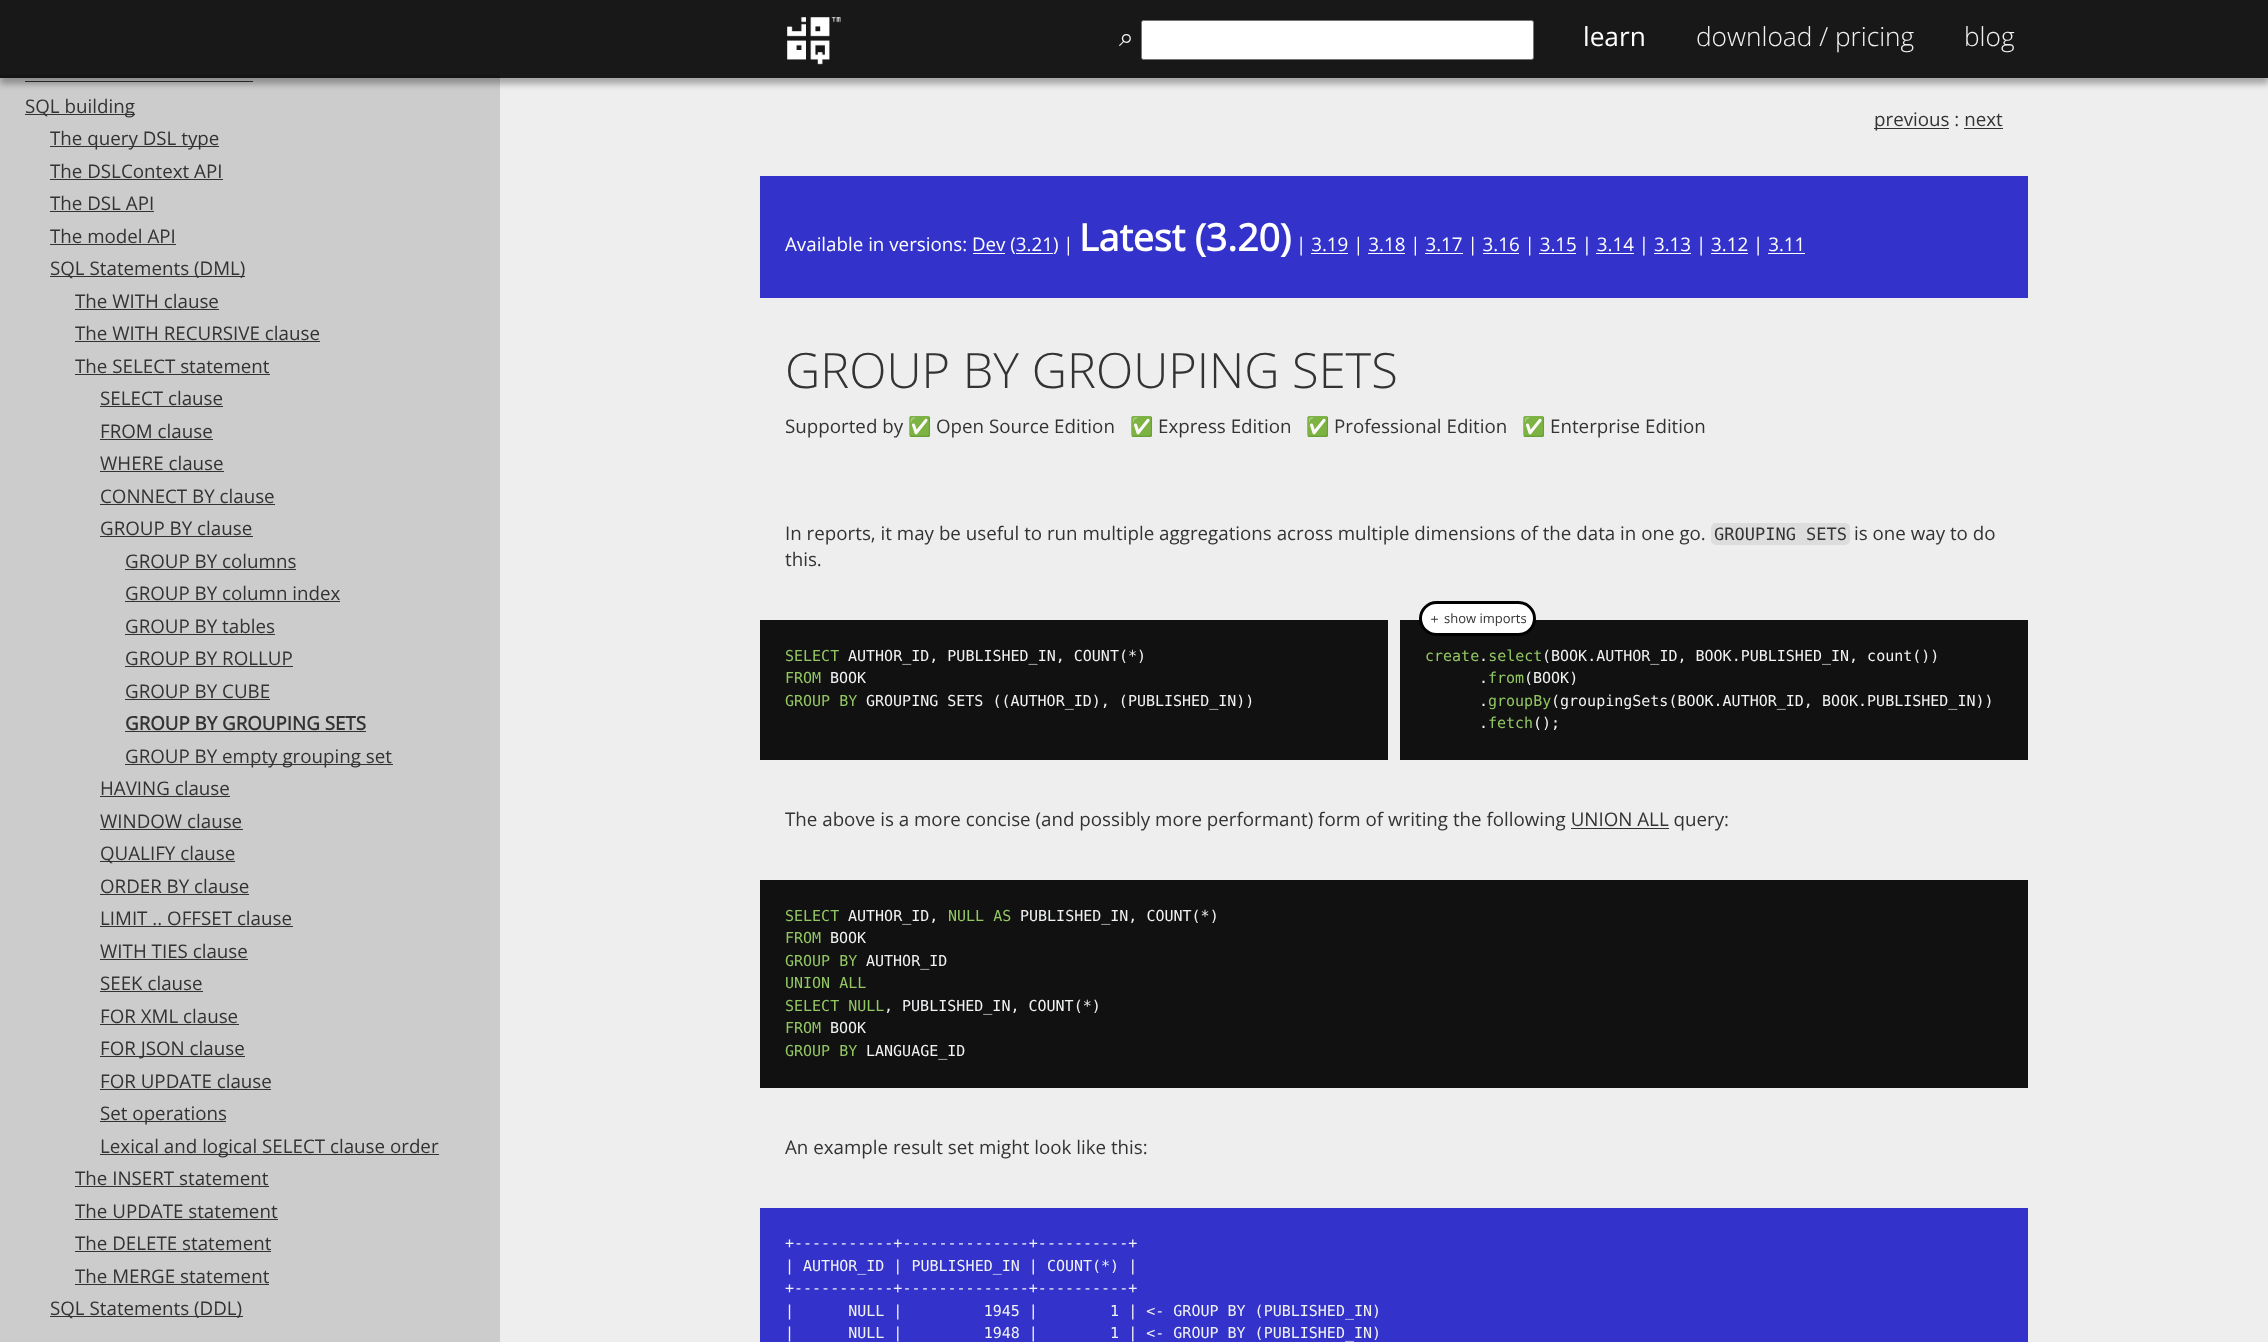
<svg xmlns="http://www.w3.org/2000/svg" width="2268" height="1342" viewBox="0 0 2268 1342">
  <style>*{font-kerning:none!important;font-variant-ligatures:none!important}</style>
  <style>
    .t1 { font: 26.25px FreeSerif; fill: #f1f2f3; }
    .t2 { font: 26.25px Open Sans; fill: #fff; }
    .t3 { font: 300 26.25px Open Sans; fill: #f1f2f3; }
    .t4 { font: 18.75px Open Sans; fill: #333; }
    .t5 { font: bold 18.75px Open Sans; fill: #333; }
    .t6 { font: 18.75px Open Sans; fill: #fff; }
    .t7 { font: bold 37.5px Open Sans; fill: #fff; }
    .t8 { font: 300 48.75px Open Sans; fill: #333; }
    .t9 { font: 18.75px Noto Color Emoji; fill: #333; }
    .t10 { font: 17px DejaVu Sans Mono; fill: #333; }
    .t11 { font: 15px DejaVu Sans Mono; fill: #93c763; }
    .t12 { font: 15px DejaVu Sans Mono; fill: #f1f2f3; }
    .t13 { font: 500 13px WenQuanYi Zen Hei; fill: #333; }
    .t14 { font: 13px Open Sans; fill: #333; }
  </style>
  <defs>
    <clipPath id="clip1"><path d="M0 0H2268V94H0ZM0 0H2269V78H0Z" clip-rule="evenodd"/></clipPath>
  </defs>
  <rect width="100%" height="100%" fill="#eee"/>
  <rect x="0" y="75" width="500" height="1267" fill="#ccc"/>
  <rect x="25" y="81" width="228" height="1" fill="#333"/>
  <g clip-path="url(#clip1)">
    <rect x="0" y="6" width="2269" height="78" fill="#0000004d" filter="blur(3px)"/>
  </g>
  <rect x="0" y="0" width="2268" height="78" fill="#000000e6"/>
  <image x="787" y="17" width="54" height="48" href="images/1.png"/>
  <text x="1119" y="46" class="t1">⌕</text>
  <rect x="1141.5" y="20.5" width="392" height="39" rx="2" fill="#fff" stroke="#767676"/>
  <text x="1583" y="46" class="t2">learn</text>
  <text x="1696" y="46" class="t3">download / pricing</text>
  <text x="1964" y="46" class="t3">blog</text>
  <rect x="25" y="114" width="110" height="1" fill="#333"/>
  <text x="25" y="113" class="t4">SQL building</text>
  <rect x="50" y="146" width="169" height="1" fill="#333"/>
  <text x="50" y="145" class="t4">The query DSL type</text>
  <text x="50" y="178" class="t4">The DSLContext API</text>
  <rect x="50" y="179" width="173" height="1" fill="#333"/>
  <text x="50" y="210" class="t4">The DSL API</text>
  <rect x="50" y="211" width="104" height="1" fill="#333"/>
  <text x="50" y="243" class="t4">The model API</text>
  <rect x="50" y="244" width="126" height="1" fill="#333"/>
  <rect x="50" y="276" width="195" height="1" fill="#333"/>
  <text x="50" y="275" class="t4">SQL Statements (DML)</text>
  <text x="75" y="308" class="t4">The WITH clause</text>
  <rect x="75" y="309" width="144" height="1" fill="#333"/>
  <text x="75" y="340" class="t4">The WITH RECURSIVE clause</text>
  <rect x="75" y="341" width="245" height="1" fill="#333"/>
  <text x="75" y="373" class="t4">The SELECT statement</text>
  <rect x="75" y="374" width="195" height="1" fill="#333"/>
  <text x="100" y="405" class="t4">SELECT clause</text>
  <rect x="100" y="406" width="123" height="1" fill="#333"/>
  <text x="100" y="438" class="t4">FROM clause</text>
  <rect x="100" y="439" width="113" height="1" fill="#333"/>
  <text x="100" y="470" class="t4">WHERE clause</text>
  <rect x="100" y="471" width="124" height="1" fill="#333"/>
  <text x="100" y="503" class="t4">CONNECT BY clause</text>
  <rect x="100" y="504" width="175" height="1" fill="#333"/>
  <text x="100" y="535" class="t4">GROUP BY clause</text>
  <rect x="100" y="536" width="153" height="1" fill="#333"/>
  <text x="125" y="568" class="t4">GROUP BY columns</text>
  <rect x="125" y="569" width="171" height="1" fill="#333"/>
  <text x="125" y="600" class="t4">GROUP BY column index</text>
  <rect x="125" y="601" width="215" height="1" fill="#333"/>
  <text x="125" y="633" class="t4">GROUP BY tables</text>
  <rect x="125" y="634" width="150" height="1" fill="#333"/>
  <text x="125" y="665" class="t4">GROUP BY ROLLUP</text>
  <rect x="125" y="666" width="168" height="1" fill="#333"/>
  <text x="125" y="698" class="t4">GROUP BY CUBE</text>
  <rect x="125" y="699" width="145" height="1" fill="#333"/>
  <text x="125" y="730" class="t5">GROUP BY GROUPING SETS</text>
  <rect x="125" y="731" width="241" height="1" fill="#333"/>
  <rect x="125" y="764" width="268" height="1" fill="#333"/>
  <text x="125" y="763" class="t4">GROUP BY empty grouping set</text>
  <text x="100" y="795" class="t4">HAVING clause</text>
  <rect x="100" y="796" width="130" height="1" fill="#333"/>
  <text x="100" y="828" class="t4">WINDOW clause</text>
  <rect x="100" y="829" width="143" height="1" fill="#333"/>
  <rect x="100" y="861" width="135" height="1" fill="#333"/>
  <text x="100" y="860" class="t4">QUALIFY clause</text>
  <text x="100" y="893" class="t4">ORDER BY clause</text>
  <rect x="100" y="894" width="149" height="1" fill="#333"/>
  <text x="100" y="925" class="t4">LIMIT .. OFFSET clause</text>
  <rect x="100" y="926" width="193" height="1" fill="#333"/>
  <text x="100" y="958" class="t4">WITH TIES clause</text>
  <rect x="100" y="959" width="148" height="1" fill="#333"/>
  <text x="100" y="990" class="t4">SEEK clause</text>
  <rect x="100" y="991" width="103" height="1" fill="#333"/>
  <text x="100" y="1023" class="t4">FOR XML clause</text>
  <rect x="100" y="1024" width="139" height="1" fill="#333"/>
  <rect x="100" y="1056" width="145" height="1" fill="#333"/>
  <text x="100" y="1055" class="t4">FOR JSON clause</text>
  <text x="100" y="1088" class="t4">FOR UPDATE clause</text>
  <rect x="100" y="1089" width="171" height="1" fill="#333"/>
  <rect x="100" y="1121" width="126" height="1" fill="#333"/>
  <text x="100" y="1120" class="t4">Set operations</text>
  <rect x="100" y="1154" width="339" height="1" fill="#333"/>
  <text x="100" y="1153" class="t4">Lexical and logical SELECT clause order</text>
  <text x="75" y="1185" class="t4">The INSERT statement</text>
  <rect x="75" y="1186" width="194" height="1" fill="#333"/>
  <text x="75" y="1218" class="t4">The UPDATE statement</text>
  <rect x="75" y="1219" width="203" height="1" fill="#333"/>
  <text x="75" y="1250" class="t4">The DELETE statement</text>
  <rect x="75" y="1251" width="196" height="1" fill="#333"/>
  <text x="75" y="1283" class="t4">The MERGE statement</text>
  <rect x="75" y="1284" width="194" height="1" fill="#333"/>
  <rect x="50" y="1316" width="193" height="1" fill="#333"/>
  <text x="50" y="1315" class="t4">SQL Statements (DDL)</text>
  <rect x="1874" y="128" width="75" height="1" fill="#333"/>
  <text x="1874" y="126" class="t4">previous : next</text>
  <rect x="1964" y="128" width="39" height="1" fill="#333"/>
  <rect x="760" y="176" width="1268" height="122" fill="#33c"/>
  <text x="785" y="251" class="t6">Available in versions: Dev (3.21) |</text>
  <text x="1079" y="251" class="t7">Latest (3.20)</text>
  <text x="1296" y="251" class="t6">| 3.19 | 3.18 | 3.17 | 3.16 | 3.15 | 3.14 | 3.13 | 3.12 | 3.11</text>
  <rect x="973" y="253" width="32" height="1" fill="#fff"/>
  <rect x="1016" y="253" width="37" height="1" fill="#fff"/>
  <rect x="1311" y="253" width="37" height="1" fill="#fff"/>
  <rect x="1368" y="253" width="37" height="1" fill="#fff"/>
  <rect x="1425" y="253" width="38" height="1" fill="#fff"/>
  <rect x="1483" y="253" width="36" height="1" fill="#fff"/>
  <rect x="1539" y="253" width="37" height="1" fill="#fff"/>
  <rect x="1596" y="253" width="38" height="1" fill="#fff"/>
  <rect x="1654" y="253" width="37" height="1" fill="#fff"/>
  <rect x="1711" y="253" width="37" height="1" fill="#fff"/>
  <rect x="1768" y="253" width="37" height="1" fill="#fff"/>
  <text x="785" y="388" class="t8">GROUP BY GROUPING SETS</text>
  <text x="785" y="433" class="t4">Supported by</text>
  <text x="908" y="433" class="t9">✅</text>
  <text x="936" y="433" class="t4">Open Source Edition</text>
  <text x="1130" y="433" class="t9">✅</text>
  <text x="1158" y="433" class="t4">Express Edition</text>
  <text x="1306" y="433" class="t9">✅</text>
  <text x="1334" y="433" class="t4">Professional Edition</text>
  <text x="1522" y="433" class="t9">✅</text>
  <text x="1550" y="433" class="t4">Enterprise Edition</text>
  <text x="785" y="540" class="t4">In reports, it may be useful to run multiple aggregations across multiple dimensions of the data in one go.</text>
  <rect x="1711" y="523" width="139" height="22" rx="5" fill="#ddd"/>
  <text x="1714" y="540" class="t10">GROUPING SETS</text>
  <text x="1854" y="540" class="t4">is one way to do</text>
  <text x="785" y="566" class="t4">this.</text>
  <rect x="760" y="620" width="628" height="140" fill="#111"/>
  <text x="785" y="661" class="t11">SELECT</text>
  <text x="848" y="661" class="t12">AUTHOR_ID, PUBLISHED_IN, COUNT(*)</text>
  <text x="785" y="683" class="t11">FROM</text>
  <text x="830" y="683" class="t12">BOOK</text>
  <text x="785" y="706" class="t11">GROUP BY</text>
  <text x="866" y="706" class="t12">GROUPING SETS ((AUTHOR_ID), (PUBLISHED_IN))</text>
  <rect x="1400" y="620" width="628" height="140" fill="#111"/>
  <text x="1425" y="661" class="t11">create select</text>
  <text x="1542" y="661" class="t12">(BOOK.AUTHOR_ID, BOOK.PUBLISHED_IN, count())</text>
  <text x="1479" y="661" class="t12">.</text>
  <text x="1479" y="683" class="t12">.</text>
  <text x="1488" y="683" class="t11">from</text>
  <text x="1524" y="683" class="t12">(BOOK)</text>
  <text x="1479" y="706" class="t12">.</text>
  <text x="1488" y="706" class="t11">groupBy</text>
  <text x="1551" y="706" class="t12">(groupingSets(BOOK.AUTHOR_ID, BOOK.PUBLISHED_IN))</text>
  <text x="1479" y="728" class="t12">.</text>
  <text x="1488" y="728" class="t11">fetch</text>
  <text x="1533" y="728" class="t12">();</text>
  <text x="785" y="826" class="t4">The above is a more concise (and possibly more performant) form of writing the following UNION ALL query:</text>
  <rect x="1571" y="828" width="98" height="1" fill="#333"/>
  <rect x="760" y="880" width="1268" height="208" fill="#111"/>
  <text x="785" y="921" class="t11">SELECT</text>
  <text x="848" y="921" class="t12">AUTHOR_ID,</text>
  <text x="948" y="921" class="t11">NULL AS</text>
  <text x="1020" y="921" class="t12">PUBLISHED_IN, COUNT(*)</text>
  <text x="785" y="943" class="t11">FROM</text>
  <text x="830" y="943" class="t12">BOOK</text>
  <text x="785" y="966" class="t11">GROUP BY</text>
  <text x="866" y="966" class="t12">AUTHOR_ID</text>
  <text x="785" y="988" class="t11">UNION ALL</text>
  <text x="785" y="1011" class="t11">SELECT NULL</text>
  <text x="884" y="1011" class="t12">, PUBLISHED_IN, COUNT(*)</text>
  <text x="785" y="1033" class="t11">FROM</text>
  <text x="830" y="1033" class="t12">BOOK</text>
  <text x="785" y="1056" class="t11">GROUP BY</text>
  <text x="866" y="1056" class="t12">LANGUAGE_ID</text>
  <text x="785" y="1154" class="t4">An example result set might look like this:</text>
  <rect x="760" y="1208" width="1268" height="134" fill="#33c"/>
  <text x="785" y="1248" class="t12">+-----------+--------------+----------+</text>
  <text x="785" y="1271" class="t12">| AUTHOR_ID | PUBLISHED_IN | COUNT(*) |</text>
  <text x="785" y="1293" class="t12">+-----------+--------------+----------+</text>
  <text x="785" y="1316" class="t12" xml:space="preserve">|      NULL |         1945 |        1 | &lt;- GROUP BY (PUBLISHED_IN)</text>
  <text x="785" y="1338" class="t12" xml:space="preserve">|      NULL |         1948 |        1 | &lt;- GROUP BY (PUBLISHED_IN)</text>
  <rect x="1420.5" y="602.5" width="114" height="32" rx="16" fill="#fff" stroke="#000" stroke-width="3"/>
  <text x="1428" y="623" class="t13">＋</text>
  <text x="1444" y="623" class="t14">show imports</text>
</svg>
